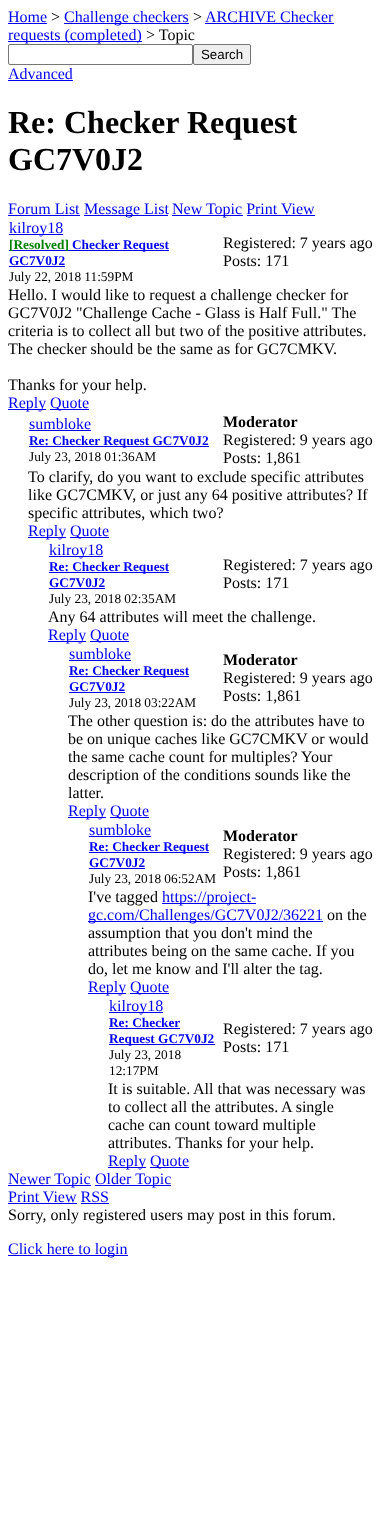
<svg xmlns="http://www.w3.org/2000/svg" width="382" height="1519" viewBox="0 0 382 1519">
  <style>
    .t1 { font: 16px Liberation Serif; fill: #00e; }
    .t2 { font: 16px Liberation Serif; fill: #000; }
    .t3 { font: 13.3px Liberation Sans; fill: #000; }
    .t4 { font: bold 32px Liberation Serif; fill: #000; }
    .t5 { font: bold 13.3px Liberation Serif; fill: #008000; }
    .t6 { font: bold 13.3px Liberation Serif; fill: #00e; }
    .t7 { font: 13.3px Liberation Serif; fill: #000; }
    .t8 { font: bold 16px Liberation Serif; fill: #000; }
  </style>
  <rect width="100%" height="100%" fill="#fff"/>
  <text x="8" y="22" class="t1">Home</text>
  <rect x="8" y="23" width="39" height="1" fill="#00e"/>
  <text x="51" y="22" class="t2">&gt;</text>
  <rect x="64" y="23" width="125" height="1" fill="#00e"/>
  <text x="64" y="22" class="t1">Challenge checkers</text>
  <text x="193" y="22" class="t2">&gt;</text>
  <text x="205" y="22" class="t1">ARCHIVE Checker</text>
  <rect x="205" y="23" width="129" height="1" fill="#00e"/>
  <rect x="8" y="41" width="134" height="1" fill="#00e"/>
  <text x="8" y="40" class="t1">requests (completed)</text>
  <text x="146" y="40" class="t2">&gt; Topic</text>
  <rect x="8.5" y="44.5" width="184" height="20" rx="1.5" fill="none" stroke="#767676"/>
  <rect x="193.5" y="44.5" width="57" height="20" rx="1.5" fill="#efefef" stroke="#767676"/>
  <text x="201" y="59" class="t3">Search</text>
  <text x="8" y="79" class="t1">Advanced</text>
  <rect x="8" y="80" width="65" height="1" fill="#00e"/>
  <text x="8" y="133" class="t4">Re: Checker Request</text>
  <text x="8" y="170" class="t4">GC7V0J2</text>
  <text x="8" y="214" class="t1">Forum List</text>
  <rect x="8" y="215" width="72" height="1" fill="#00e"/>
  <rect x="84" y="215" width="84" height="1" fill="#00e"/>
  <text x="84" y="214" class="t1">Message List</text>
  <rect x="172" y="215" width="71" height="1" fill="#00e"/>
  <text x="172" y="214" class="t1">New Topic Print View</text>
  <rect x="247" y="215" width="68" height="1" fill="#00e"/>
  <rect x="9" y="234" width="54" height="1" fill="#00e"/>
  <text x="9" y="233" class="t1">kilroy18</text>
  <rect x="9" y="250" width="160" height="1" fill="#00e"/>
  <text x="9" y="249" class="t5">[Resolved]</text>
  <text x="72" y="249" class="t6">Checker Request</text>
  <text x="9" y="265" class="t6">GC7V0J2</text>
  <rect x="9" y="266" width="56" height="1" fill="#00e"/>
  <text x="9" y="281" class="t7">July 22, 2018 11:59PM</text>
  <text x="223" y="248" class="t2">Registered: 7 years ago</text>
  <text x="223" y="266" class="t2">Posts: 171</text>
  <text x="8" y="300" class="t2">Hello. I would like to request a challenge checker for</text>
  <text x="8" y="318" class="t2">GC7V0J2 "Challenge Cache - Glass is Half Full." The</text>
  <text x="8" y="336" class="t2">criteria is to collect all but two of the positive attributes.</text>
  <text x="8" y="354" class="t2">The checker should be the same as for GC7CMKV.</text>
  <text x="8" y="390" class="t2">Thanks for your help.</text>
  <rect x="8" y="409" width="38" height="1" fill="#00e"/>
  <text x="8" y="408" class="t1">Reply</text>
  <rect x="50" y="409" width="39" height="1" fill="#00e"/>
  <text x="50" y="408" class="t1">Quote</text>
  <text x="29" y="429" class="t1">sumbloke</text>
  <rect x="29" y="430" width="62" height="1" fill="#00e"/>
  <rect x="29" y="446" width="180" height="1" fill="#00e"/>
  <text x="29" y="445" class="t6">Re: Checker Request GC7V0J2</text>
  <text x="29" y="461" class="t7">July 23, 2018 01:36AM</text>
  <text x="223" y="427" class="t8">Moderator</text>
  <text x="223" y="445" class="t2">Registered: 9 years ago</text>
  <text x="223" y="463" class="t2">Posts: 1,861</text>
  <text x="28" y="482" class="t2">To clarify, do you want to exclude specific attributes</text>
  <text x="28" y="500" class="t2">like GC7CMKV, or just any 64 positive attributes? If</text>
  <text x="28" y="518" class="t2">specific attributes, which two?</text>
  <rect x="28" y="537" width="38" height="1" fill="#00e"/>
  <text x="28" y="536" class="t1">Reply</text>
  <rect x="70" y="537" width="39" height="1" fill="#00e"/>
  <text x="70" y="536" class="t1">Quote</text>
  <rect x="49" y="556" width="54" height="1" fill="#00e"/>
  <text x="49" y="555" class="t1">kilroy18</text>
  <rect x="49" y="572" width="120" height="1" fill="#00e"/>
  <text x="49" y="571" class="t6">Re: Checker Request</text>
  <text x="49" y="587" class="t6">GC7V0J2</text>
  <rect x="49" y="588" width="56" height="1" fill="#00e"/>
  <text x="49" y="603" class="t7">July 23, 2018 02:35AM</text>
  <text x="223" y="570" class="t2">Registered: 7 years ago</text>
  <text x="223" y="588" class="t2">Posts: 171</text>
  <text x="48" y="622" class="t2">Any 64 attributes will meet the challenge.</text>
  <rect x="48" y="641" width="38" height="1" fill="#00e"/>
  <text x="48" y="640" class="t1">Reply</text>
  <rect x="90" y="641" width="39" height="1" fill="#00e"/>
  <text x="90" y="640" class="t1">Quote</text>
  <text x="69" y="659" class="t1">sumbloke</text>
  <rect x="69" y="660" width="62" height="1" fill="#00e"/>
  <rect x="69" y="676" width="120" height="1" fill="#00e"/>
  <text x="69" y="675" class="t6">Re: Checker Request</text>
  <text x="69" y="691" class="t6">GC7V0J2</text>
  <rect x="69" y="692" width="56" height="1" fill="#00e"/>
  <text x="69" y="707" class="t7">July 23, 2018 03:22AM</text>
  <text x="223" y="665" class="t8">Moderator</text>
  <text x="223" y="683" class="t2">Registered: 9 years ago</text>
  <text x="223" y="701" class="t2">Posts: 1,861</text>
  <text x="68" y="726" class="t2">The other question is: do the attributes have to</text>
  <text x="68" y="744" class="t2">be on unique caches like GC7CMKV or would</text>
  <text x="68" y="762" class="t2">the same cache count for multiples? Your</text>
  <text x="68" y="780" class="t2">description of the conditions sounds like the</text>
  <text x="68" y="798" class="t2">latter.</text>
  <rect x="68" y="817" width="38" height="1" fill="#00e"/>
  <text x="68" y="816" class="t1">Reply</text>
  <rect x="110" y="817" width="39" height="1" fill="#00e"/>
  <text x="110" y="816" class="t1">Quote</text>
  <text x="89" y="835" class="t1">sumbloke</text>
  <rect x="89" y="836" width="62" height="1" fill="#00e"/>
  <rect x="89" y="852" width="120" height="1" fill="#00e"/>
  <text x="89" y="851" class="t6">Re: Checker Request</text>
  <text x="89" y="867" class="t6">GC7V0J2</text>
  <rect x="89" y="868" width="56" height="1" fill="#00e"/>
  <text x="89" y="883" class="t7">July 23, 2018 06:52AM</text>
  <text x="223" y="841" class="t8">Moderator</text>
  <text x="223" y="859" class="t2">Registered: 9 years ago</text>
  <text x="223" y="877" class="t2">Posts: 1,861</text>
  <text x="88" y="902" class="t2">I've tagged</text>
  <rect x="162" y="903" width="94" height="1" fill="#00e"/>
  <text x="162" y="902" class="t1">https://project-</text>
  <rect x="88" y="921" width="235" height="1" fill="#00e"/>
  <text x="88" y="920" class="t1">gc.com/Challenges/GC7V0J2/36221</text>
  <text x="327" y="920" class="t2">on the</text>
  <text x="88" y="938" class="t2">assumption that you don't mind the</text>
  <text x="88" y="956" class="t2">attributes being on the same cache. If you</text>
  <text x="88" y="974" class="t2">do, let me know and I'll alter the tag.</text>
  <rect x="88" y="993" width="38" height="1" fill="#00e"/>
  <text x="88" y="992" class="t1">Reply</text>
  <rect x="130" y="993" width="39" height="1" fill="#00e"/>
  <text x="130" y="992" class="t1">Quote</text>
  <rect x="109" y="1012" width="54" height="1" fill="#00e"/>
  <text x="109" y="1011" class="t1">kilroy18</text>
  <text x="109" y="1027" class="t6">Re: Checker</text>
  <rect x="109" y="1028" width="71" height="1" fill="#00e"/>
  <rect x="109" y="1044" width="106" height="1" fill="#00e"/>
  <text x="109" y="1043" class="t6">Request GC7V0J2</text>
  <text x="109" y="1059" class="t7">July 23, 2018</text>
  <text x="109" y="1075" class="t7">12:17PM</text>
  <text x="223" y="1034" class="t2">Registered: 7 years ago</text>
  <text x="223" y="1052" class="t2">Posts: 171</text>
  <text x="108" y="1094" class="t2">It is suitable.</text>
  <text x="193" y="1094" class="t2">All that was necessary was</text>
  <text x="108" y="1112" class="t2">to collect all the attributes.</text>
  <text x="281" y="1112" class="t2">A single</text>
  <text x="108" y="1130" class="t2">cache can count toward multiple</text>
  <text x="108" y="1148" class="t2">attributes. Thanks for your help.</text>
  <rect x="108" y="1167" width="38" height="1" fill="#00e"/>
  <text x="108" y="1166" class="t1">Reply</text>
  <rect x="150" y="1167" width="39" height="1" fill="#00e"/>
  <text x="150" y="1166" class="t1">Quote</text>
  <rect x="8" y="1185" width="83" height="1" fill="#00e"/>
  <text x="8" y="1184" class="t1">Newer Topic</text>
  <rect x="95" y="1185" width="76" height="1" fill="#00e"/>
  <text x="95" y="1184" class="t1">Older Topic</text>
  <text x="8" y="1202" class="t1">Print View RSS</text>
  <rect x="8" y="1203" width="69" height="1" fill="#00e"/>
  <rect x="81" y="1203" width="28" height="1" fill="#00e"/>
  <text x="8" y="1220" class="t2">Sorry, only registered users may post in this forum.</text>
  <rect x="8" y="1255" width="120" height="1" fill="#00e"/>
  <text x="8" y="1254" class="t1">Click here to login</text>
</svg>
